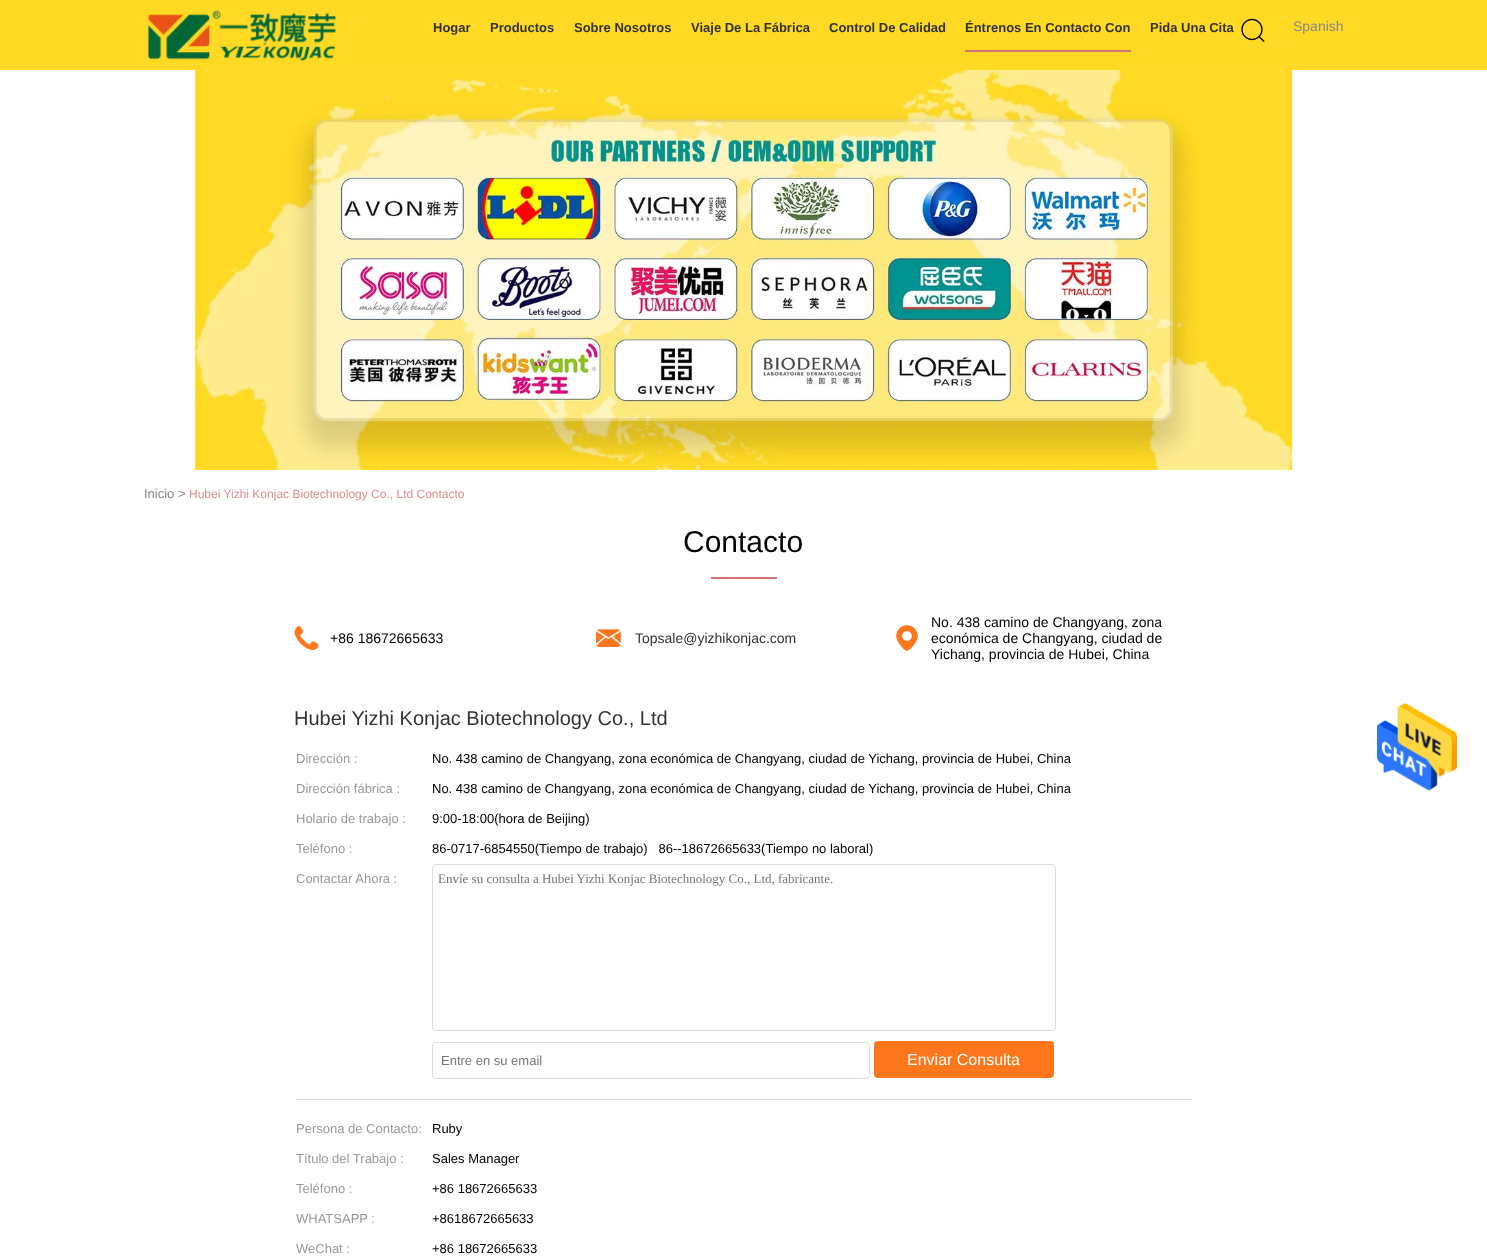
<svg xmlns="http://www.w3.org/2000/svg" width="1487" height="1256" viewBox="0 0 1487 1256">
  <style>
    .t1 { font: bold 13px Liberation Sans; fill: #333; }
    .t2 { font: 14px Liberation Sans; fill: #888; }
    .t3 { font: 13px Liberation Sans; fill: #888; }
    .t4 { font: 12px Liberation Sans; fill: #d88d8d; }
    .t5 { font: 30px Liberation Sans; fill: #000; }
    .t6 { font: 14px Liberation Sans; fill: #000; }
    .t7 { font: 14px Liberation Sans; fill: #333; }
    .t8 { font: 20px Liberation Sans; fill: #333; }
    .t9 { font: 13px Liberation Sans; fill: #999; }
    .t10 { font: 13px Liberation Sans; fill: #000; }
    .t11 { font: 13px Liberation Serif; fill: #757575; }
    .t12 { font: 13px Liberation Sans; fill: #757575; }
    .t13 { font: 16px Liberation Sans; fill: #fff; }
  </style>
  <rect width="100%" height="100%" fill="#fff"/>
  <rect x="0" y="0" width="1487" height="70" fill="#ffd924"/>
  <image x="148" y="10" width="188" height="51" href="images/1.png"/>
  <text x="433" y="32" class="t1">Hogar</text>
  <text x="490" y="32" class="t1">Productos</text>
  <text x="574" y="32" class="t1">Sobre Nosotros</text>
  <text x="691" y="32" class="t1">Viaje De La Fábrica</text>
  <text x="829" y="32" class="t1">Control De Calidad</text>
  <rect x="965" y="50" width="166" height="2" fill="#d17474"/>
  <text x="965" y="32" class="t1">Éntrenos En Contacto Con</text>
  <text x="1150" y="32" class="t1">Pida Una Cita</text>
  <image x="1241" y="18" width="24" height="25" href="images/2.png"/>
  <text x="1293" y="31" class="t2">Spanish</text>
  <image x="195" y="70" width="1098" height="400" href="images/3.png"/>
  <text x="144" y="498" class="t3">Inicio &gt;</text>
  <text x="189" y="498" class="t4">Hubei Yizhi Konjac Biotechnology Co., Ltd Contacto</text>
  <text x="683" y="552" class="t5">Contacto</text>
  <rect x="711" y="577" width="66" height="2" fill="#d17474"/>
  <image x="294" y="626" width="25" height="24" href="images/4.png"/>
  <text x="330" y="643" class="t6">+86 18672665633</text>
  <image x="596" y="629" width="25" height="18" href="images/5.png"/>
  <text x="635" y="643" class="t7">Topsale@yizhikonjac.com</text>
  <image x="896" y="625" width="22" height="26" href="images/6.png"/>
  <text x="931" y="627" class="t6">No. 438 camino de Changyang, zona</text>
  <text x="931" y="643" class="t6">económica de Changyang, ciudad de</text>
  <text x="931" y="659" class="t6">Yichang, provincia de Hubei, China</text>
  <text x="294" y="725" class="t8">Hubei Yizhi Konjac Biotechnology Co., Ltd</text>
  <text x="296" y="763" class="t9">Dirección :</text>
  <text x="432" y="763" class="t10">No. 438 camino de Changyang, zona económica de Changyang, ciudad de Yichang, provincia de Hubei, China</text>
  <text x="296" y="793" class="t9">Dirección fábrica :</text>
  <text x="432" y="793" class="t10">No. 438 camino de Changyang, zona económica de Changyang, ciudad de Yichang, provincia de Hubei, China</text>
  <text x="296" y="823" class="t9">Holario de trabajo :</text>
  <text x="432" y="823" class="t10">9:00-18:00(hora de Beijing)</text>
  <text x="296" y="853" class="t9">Teléfono :</text>
  <text x="432" y="853" class="t10" xml:space="preserve">86-0717-6854550(Tiempo de trabajo)   86--18672665633(Tiempo no laboral)</text>
  <text x="296" y="883" class="t9">Contactar Ahora :</text>
  <rect x="432.5" y="864.5" width="623" height="166" rx="3.5" fill="none" stroke="#ddd"/>
  <text x="438" y="883" class="t11">Envíe su consulta a Hubei Yizhi Konjac Biotechnology Co., Ltd, fabricante.</text>
  <rect x="432.5" y="1042.5" width="437" height="36" rx="3.5" fill="none" stroke="#ddd"/>
  <text x="441" y="1065" class="t12">Entre en su email</text>
  <rect x="874" y="1041" width="180" height="37" rx="4" fill="#ff771c"/>
  <text x="907" y="1065" class="t13">Enviar Consulta</text>
  <rect x="296" y="1099" width="896" height="1" fill="#ddd"/>
  <text x="296" y="1133" class="t9">Persona de Contacto:</text>
  <text x="432" y="1133" class="t10">Ruby</text>
  <text x="296" y="1163" class="t9">Título del Trabajo :</text>
  <text x="432" y="1163" class="t10">Sales Manager</text>
  <text x="296" y="1193" class="t9">Teléfono :</text>
  <text x="432" y="1193" class="t10">+86 18672665633</text>
  <text x="296" y="1223" class="t9">WHATSAPP :</text>
  <text x="432" y="1223" class="t10">+8618672665633</text>
  <text x="296" y="1253" class="t9">WeChat :</text>
  <text x="432" y="1253" class="t10">+86 18672665633</text>
  <image x="1377" y="703" width="80" height="88" href="images/7.png"/>
</svg>
